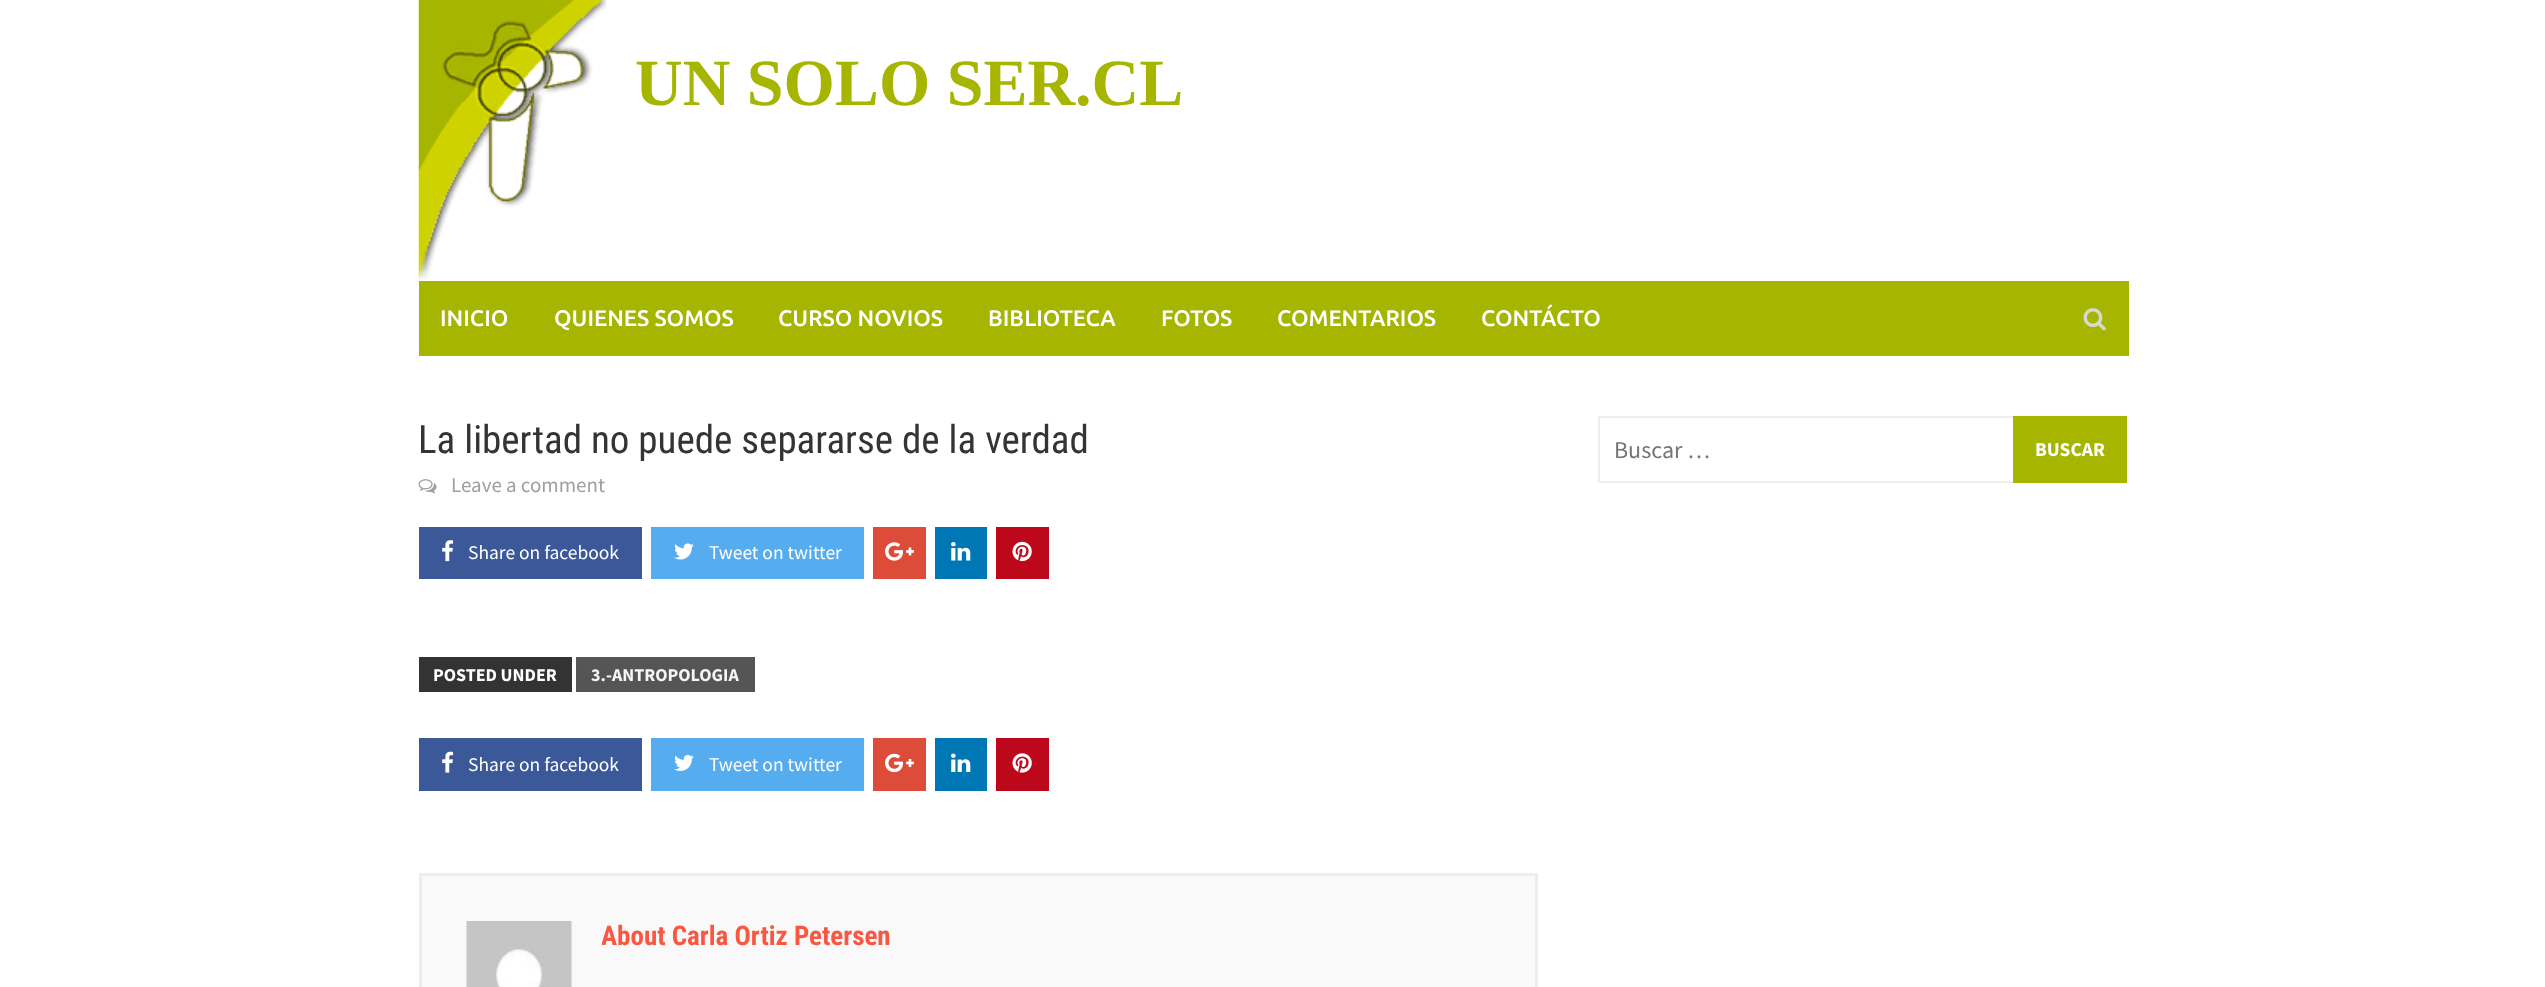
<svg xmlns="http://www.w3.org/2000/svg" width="2545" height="987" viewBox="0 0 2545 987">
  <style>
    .t1 { font: bold 66px Liberation Serif; fill: #a6b500; }
    .t2 { font: 500 22.5px Ubuntu; fill: #fff; }
    .t3 { font: 39px Roboto Condensed; fill: #353434; }
    .t4 { font: 21px Source Sans Pro; fill: #9f9f9f; }
    .t5 { font: 19.5px Source Sans Pro; fill: #fff; }
    .t6 { font: bold 18px Source Sans Pro; fill: #fff; }
    .t7 { font: bold 18px Source Sans Pro; fill: #f5f5f5; }
    .t8 { font: bold 27px Roboto Condensed; fill: #fa5742; }
    .t9 { font: 24px Source Sans Pro; fill: #757575; }
    .t10 { font: bold 19.5px Source Sans Pro; fill: #fff; }
  </style>
  <defs>
    <clipPath id="clip1"><rect x="602" y="921" width="888" height="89"/></clipPath>
  </defs>
  <rect width="100%" height="100%" fill="#fff"/>
  <image x="418" y="0" width="188" height="281" href="images/1.png"/>
  <text x="635" y="105" class="t1">UN SOLO SER.CL</text>
  <rect x="419" y="281" width="1710" height="75" fill="#a6b500"/>
  <text x="440" y="326" class="t2">INICIO</text>
  <text x="554" y="326" class="t2">QUIENES SOMOS</text>
  <text x="778" y="326" class="t2">CURSO NOVIOS</text>
  <text x="988" y="326" class="t2">BIBLIOTECA</text>
  <text x="1161" y="326" class="t2">FOTOS</text>
  <text x="1277" y="326" class="t2">COMENTARIOS</text>
  <text x="1481" y="326" class="t2">CONTÁCTO</text>
  <image x="2083" y="308" width="23" height="23" href="images/2.png"/>
  <text x="418" y="453" class="t3">La libertad no puede separarse de la verdad</text>
  <image x="418" y="479" width="19" height="15" href="images/3.png"/>
  <text x="451" y="492" class="t4">Leave a comment</text>
  <rect x="419" y="527" width="223" height="52" fill="#3b5999"/>
  <image x="442" y="540" width="12" height="22" href="images/4.png"/>
  <text x="468" y="559" class="t5">Share on facebook</text>
  <rect x="651" y="527" width="213" height="52" fill="#55acee"/>
  <image x="674" y="543" width="20" height="17" href="images/5.png"/>
  <text x="709" y="559" class="t5">Tweet on twitter</text>
  <rect x="873" y="527" width="53" height="52" fill="#dd4b39"/>
  <image x="885" y="542" width="29" height="19" href="images/6.png"/>
  <rect x="935" y="527" width="52" height="52" fill="#0077b5"/>
  <image x="951" y="542" width="20" height="19" href="images/7.png"/>
  <rect x="996" y="527" width="53" height="52" fill="#bd081c"/>
  <image x="1012" y="541" width="20" height="21" href="images/8.png"/>
  <rect x="419" y="657" width="153" height="35" fill="#333"/>
  <text x="433" y="681" class="t6">POSTED UNDER</text>
  <rect x="576" y="657" width="179" height="35" fill="#555"/>
  <text x="591" y="681" class="t7">3.-ANTROPOLOGIA</text>
  <rect x="419" y="738" width="223" height="53" fill="#3b5999"/>
  <image x="442" y="751" width="12" height="22" href="images/9.png"/>
  <text x="468" y="771" class="t5">Share on facebook</text>
  <rect x="651" y="738" width="213" height="53" fill="#55acee"/>
  <image x="674" y="754" width="20" height="17" href="images/10.png"/>
  <text x="709" y="771" class="t5">Tweet on twitter</text>
  <rect x="873" y="738" width="53" height="53" fill="#dd4b39"/>
  <image x="885" y="753" width="29" height="20" href="images/11.png"/>
  <rect x="935" y="738" width="52" height="53" fill="#0077b5"/>
  <image x="951" y="753" width="20" height="19" href="images/12.png"/>
  <rect x="996" y="738" width="53" height="53" fill="#bd081c"/>
  <image x="1012" y="753" width="20" height="20" href="images/13.png"/>
  <rect x="420.5" y="874.5" width="1116" height="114" fill="#f9f9f9" stroke="#ededed" stroke-width="3"/>
  <image x="466" y="921" width="106" height="66" href="images/14.png"/>
  <g clip-path="url(#clip1)">
    <text x="601" y="945" class="t8">About Carla Ortiz Petersen</text>
  </g>
  <rect x="1599" y="417" width="527" height="65" fill="none" stroke="#eee" stroke-width="2"/>
  <text x="1614" y="458" class="t9">Buscar …</text>
  <rect x="2013" y="416" width="114" height="67" fill="#a6b500"/>
  <text x="2035" y="456" class="t10">BUSCAR</text>
</svg>
